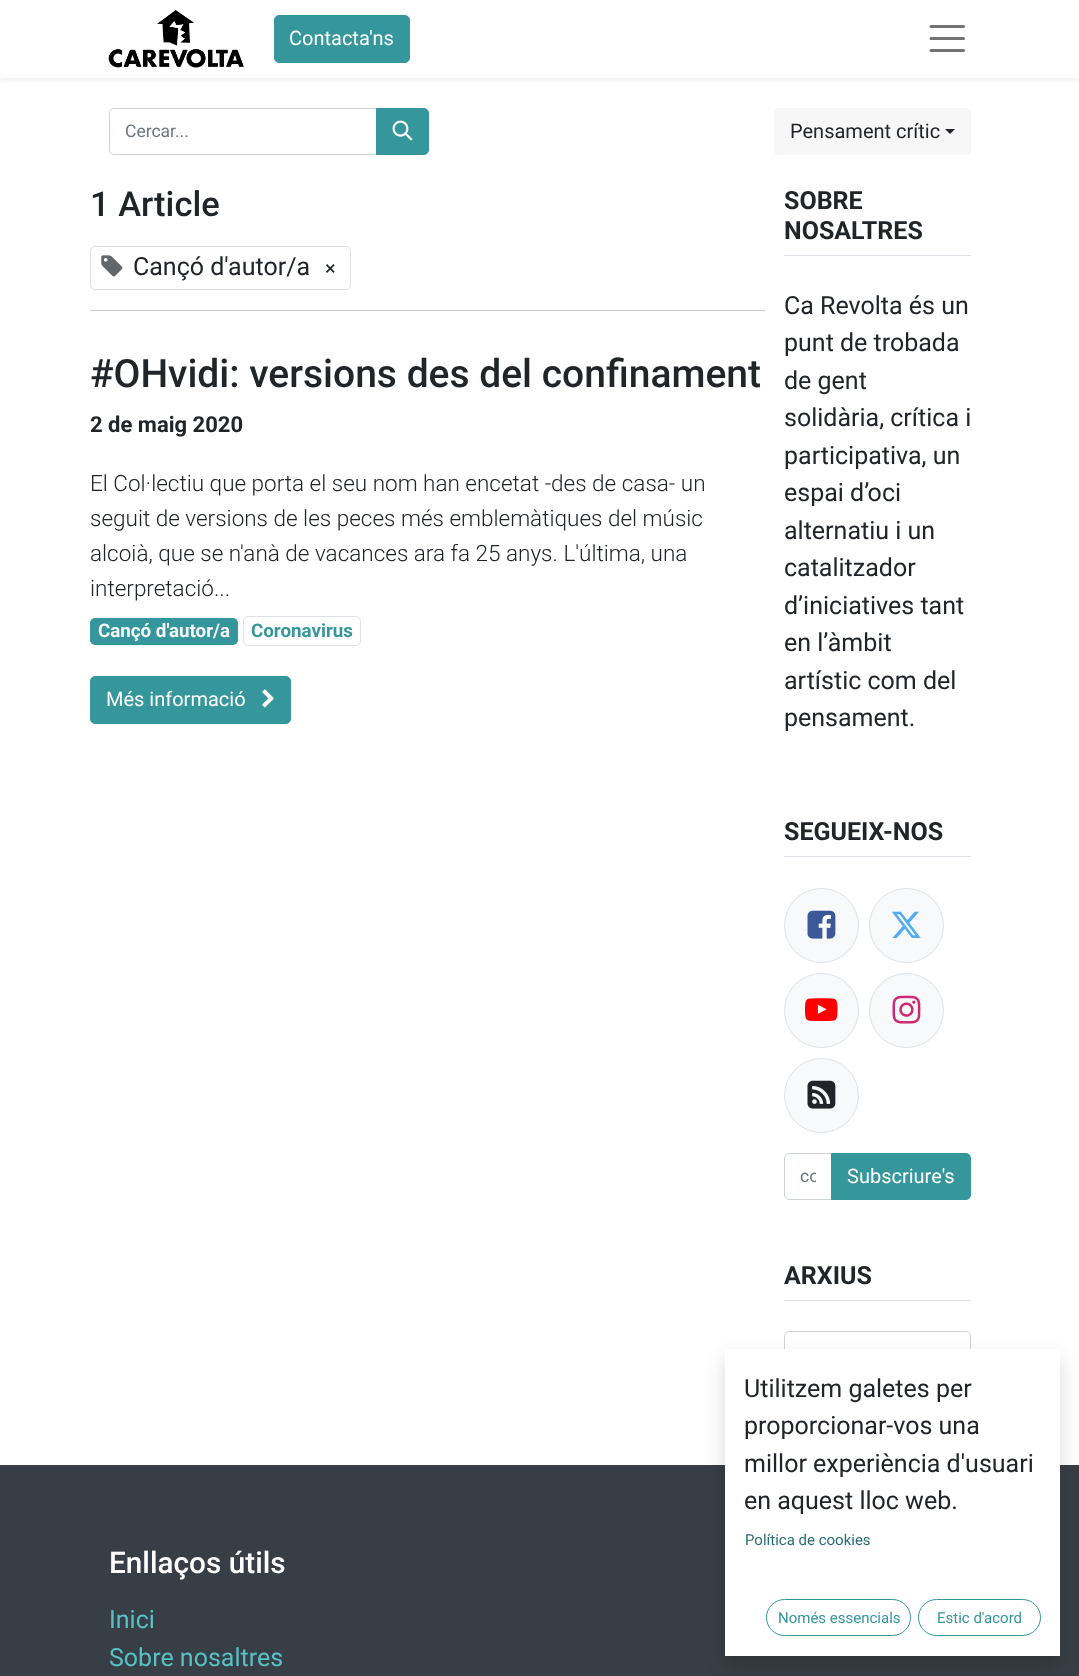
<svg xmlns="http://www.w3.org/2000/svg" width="1079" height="1676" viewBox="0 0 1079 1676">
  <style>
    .t1 { font: 20px Roboto; fill: #fff; }
    .t2 { font: 17.5px Roboto; fill: #6c757d; }
    .t3 { font: 20px Roboto; fill: #212529; }
    .t4 { font: 500 34.5px Roboto; fill: #212529; }
    .t5 { font: 25px Roboto; fill: #212529; }
    .t6 { font: 500 39px Roboto; fill: #212529; }
    .t7 { font: bold 22px Roboto; fill: #212529; }
    .t8 { font: 300 22.5px Roboto; fill: #212529; }
    .t9 { font: bold 18.75px Roboto; fill: #f7f7f7; }
    .t10 { font: bold 18.75px Roboto; fill: #35979c; }
    .t11 { font: bold 25px Roboto; fill: #212529; }
    .t12 { font: 500 29.75px Roboto; fill: #fff; }
    .t13 { font: 25px Roboto; fill: #57c1c6; }
    .t14 { font: 15px Roboto; fill: #276e72; }
    .t15 { font: 15px Roboto; fill: #35979c; }
  </style>
  <defs>
    <clipPath id="clip1"><rect x="800" y="1166" width="16" height="20"/></clipPath>
  </defs>
  <rect width="100%" height="100%" fill="#fff"/>
  <rect x="0" y="3" width="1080" height="77" fill="#00000012" filter="blur(2.5px)"/>
  <rect x="0" y="0" width="1079" height="78" fill="#fff"/>
  <image x="108" y="10" width="136" height="58" href="images/1.png"/>
  <rect x="274.5" y="15.5" width="135" height="47" rx="4.5" fill="#35979c" stroke="#35979c"/>
  <text x="289" y="45" class="t1">Contacta'ns</text>
  <path d="M931 26.5H963.5M931 38.5H963.5M931 50.5H963.5" fill="none" stroke="#737373" stroke-width="3" stroke-linecap="round"/>
  <path d="M114 108.5H377.5V154.5H114C111.5 154.5 109.5 152.5 109.5 150V113C109.5 110.5 111.5 108.5 114 108.5Z" fill="none" stroke="#ced4da"/>
  <text x="125" y="137" class="t2">Cercar...</text>
  <path d="M376.5 108.5H424C426.5 108.5 428.5 110.5 428.5 113V150C428.5 152.5 426.5 154.5 424 154.5H376.5Z" fill="#35979c" stroke="#35979c"/>
  <image x="392" y="120" width="21" height="21" href="images/2.png"/>
  <rect x="774" y="108" width="197" height="47" rx="5" fill="#f7f7f7"/>
  <text x="790" y="138" class="t3">Pensament crític</text>
  <path d="M945 129H955L950 134Z" fill="#212529"/>
  <text x="90" y="216" class="t4">1 Article</text>
  <rect x="90.5" y="246.5" width="260" height="43" rx="4.5" fill="none" stroke="#dee2e6"/>
  <image x="101" y="255" width="22" height="22" href="images/3.png"/>
  <text x="133" y="275" class="t5">Cançó d'autor/a</text>
  <text x="325" y="275" class="t3">×</text>
  <rect x="90" y="310" width="675" height="1" fill="#c8c9ca"/>
  <text x="90" y="387" class="t6">#OHvidi: versions des del confinament</text>
  <text x="90" y="432" class="t7">2 de maig 2020</text>
  <text x="90" y="491" class="t8">El Col·lectiu que porta el seu nom han encetat -des de casa- un</text>
  <text x="90" y="526" class="t8">seguit de versions de les peces més emblemàtiques del músic</text>
  <text x="90" y="561" class="t8">alcoià, que se n'anà de vacances ara fa 25 anys. L'última, una</text>
  <text x="90" y="596" class="t8">interpretació...</text>
  <rect x="90" y="618" width="148" height="27" rx="5" fill="#35979c"/>
  <text x="98" y="637" class="t9">Cançó d'autor/a</text>
  <rect x="243.5" y="616.5" width="117" height="29" rx="4.5" fill="none" stroke="#dee2e6"/>
  <text x="251" y="637" class="t10">Coronavirus</text>
  <rect x="90.5" y="676.5" width="200" height="47" rx="4.5" fill="#35979c" stroke="#35979c"/>
  <text x="106" y="706" class="t1">Més informació</text>
  <image x="262" y="689" width="12" height="19" href="images/4.png"/>
  <rect x="784" y="255" width="187" height="1" fill="#dee2e6"/>
  <text x="784" y="209" class="t11">SOBRE</text>
  <text x="784" y="239" class="t11">NOSALTRES</text>
  <text x="784" y="314" class="t5">Ca Revolta és un</text>
  <text x="784" y="351" class="t5">punt de trobada</text>
  <text x="784" y="389" class="t5">de gent</text>
  <text x="784" y="426" class="t5">solidària, crítica i</text>
  <text x="784" y="464" class="t5">participativa, un</text>
  <text x="784" y="501" class="t5">espai d’oci</text>
  <text x="784" y="539" class="t5">alternatiu i un</text>
  <text x="784" y="576" class="t5">catalitzador</text>
  <text x="784" y="614" class="t5">d’iniciatives tant</text>
  <text x="784" y="651" class="t5">en l’àmbit</text>
  <text x="784" y="689" class="t5">artístic com del</text>
  <text x="784" y="726" class="t5">pensament.</text>
  <rect x="784" y="856" width="187" height="1" fill="#dee2e6"/>
  <text x="784" y="840" class="t11">SEGUEIX-NOS</text>
  <circle cx="821.5" cy="925.5" r="37" fill="#f8f9fa" stroke="#dee2e6"/>
  <image x="807" y="910" width="29" height="29" href="images/5.png"/>
  <circle cx="906.5" cy="925.5" r="37" fill="#f8f9fa" stroke="#dee2e6"/>
  <image x="891" y="911" width="30" height="27" href="images/6.png"/>
  <circle cx="821.5" cy="1010.5" r="37" fill="#f8f9fa" stroke="#dee2e6"/>
  <image x="805" y="998" width="33" height="24" href="images/7.png"/>
  <circle cx="906.5" cy="1010.5" r="37" fill="#f8f9fa" stroke="#dee2e6"/>
  <image x="892" y="995" width="29" height="29" href="images/8.png"/>
  <circle cx="821.5" cy="1095.5" r="37" fill="#f8f9fa" stroke="#dee2e6"/>
  <image x="807" y="1080" width="29" height="29" href="images/9.png"/>
  <path d="M789 1153.5H832.5V1199.5H789C786.5 1199.5 784.5 1197.5 784.5 1195V1158C784.5 1155.5 786.5 1153.5 789 1153.5Z" fill="none" stroke="#ced4da"/>
  <g clip-path="url(#clip1)">
    <text x="800" y="1182" class="t2">co</text>
  </g>
  <path d="M831.5 1153.5H966C968.5 1153.5 970.5 1155.5 970.5 1158V1195C970.5 1197.5 968.5 1199.5 966 1199.5H831.5Z" fill="#35979c" stroke="#35979c"/>
  <text x="847" y="1183" class="t1">Subscriure's</text>
  <rect x="784" y="1300" width="187" height="1" fill="#dee2e6"/>
  <text x="784" y="1284" class="t11">ARXIUS</text>
  <rect x="784.5" y="1331.5" width="186" height="43" rx="4.5" fill="none" stroke="#ced4da"/>
  <rect x="0" y="1465" width="1079" height="211" fill="#383e45"/>
  <text x="109" y="1573" class="t12">Enllaços útils</text>
  <text x="109" y="1628" class="t13">Inici</text>
  <text x="109" y="1666" class="t13">Sobre nosaltres</text>
  <rect x="725" y="1359" width="335" height="307" fill="#00000026" filter="blur(10px)"/>
  <rect x="725" y="1349" width="335" height="307" fill="#fff"/>
  <text x="744" y="1397" class="t5">Utilitzem galetes per</text>
  <text x="744" y="1434" class="t5">proporcionar-vos una</text>
  <text x="744" y="1472" class="t5">millor experiència d'usuari</text>
  <text x="744" y="1509" class="t5">en aquest lloc web.</text>
  <text x="745" y="1545" class="t14">Política de cookies</text>
  <rect x="766.5" y="1599.5" width="144" height="36" rx="18" fill="none" stroke="#35979c"/>
  <text x="778" y="1623" class="t15">Només essencials</text>
  <rect x="918.5" y="1599.5" width="122" height="36" rx="18" fill="none" stroke="#35979c"/>
  <text x="937" y="1623" class="t15">Estic d'acord</text>
</svg>
